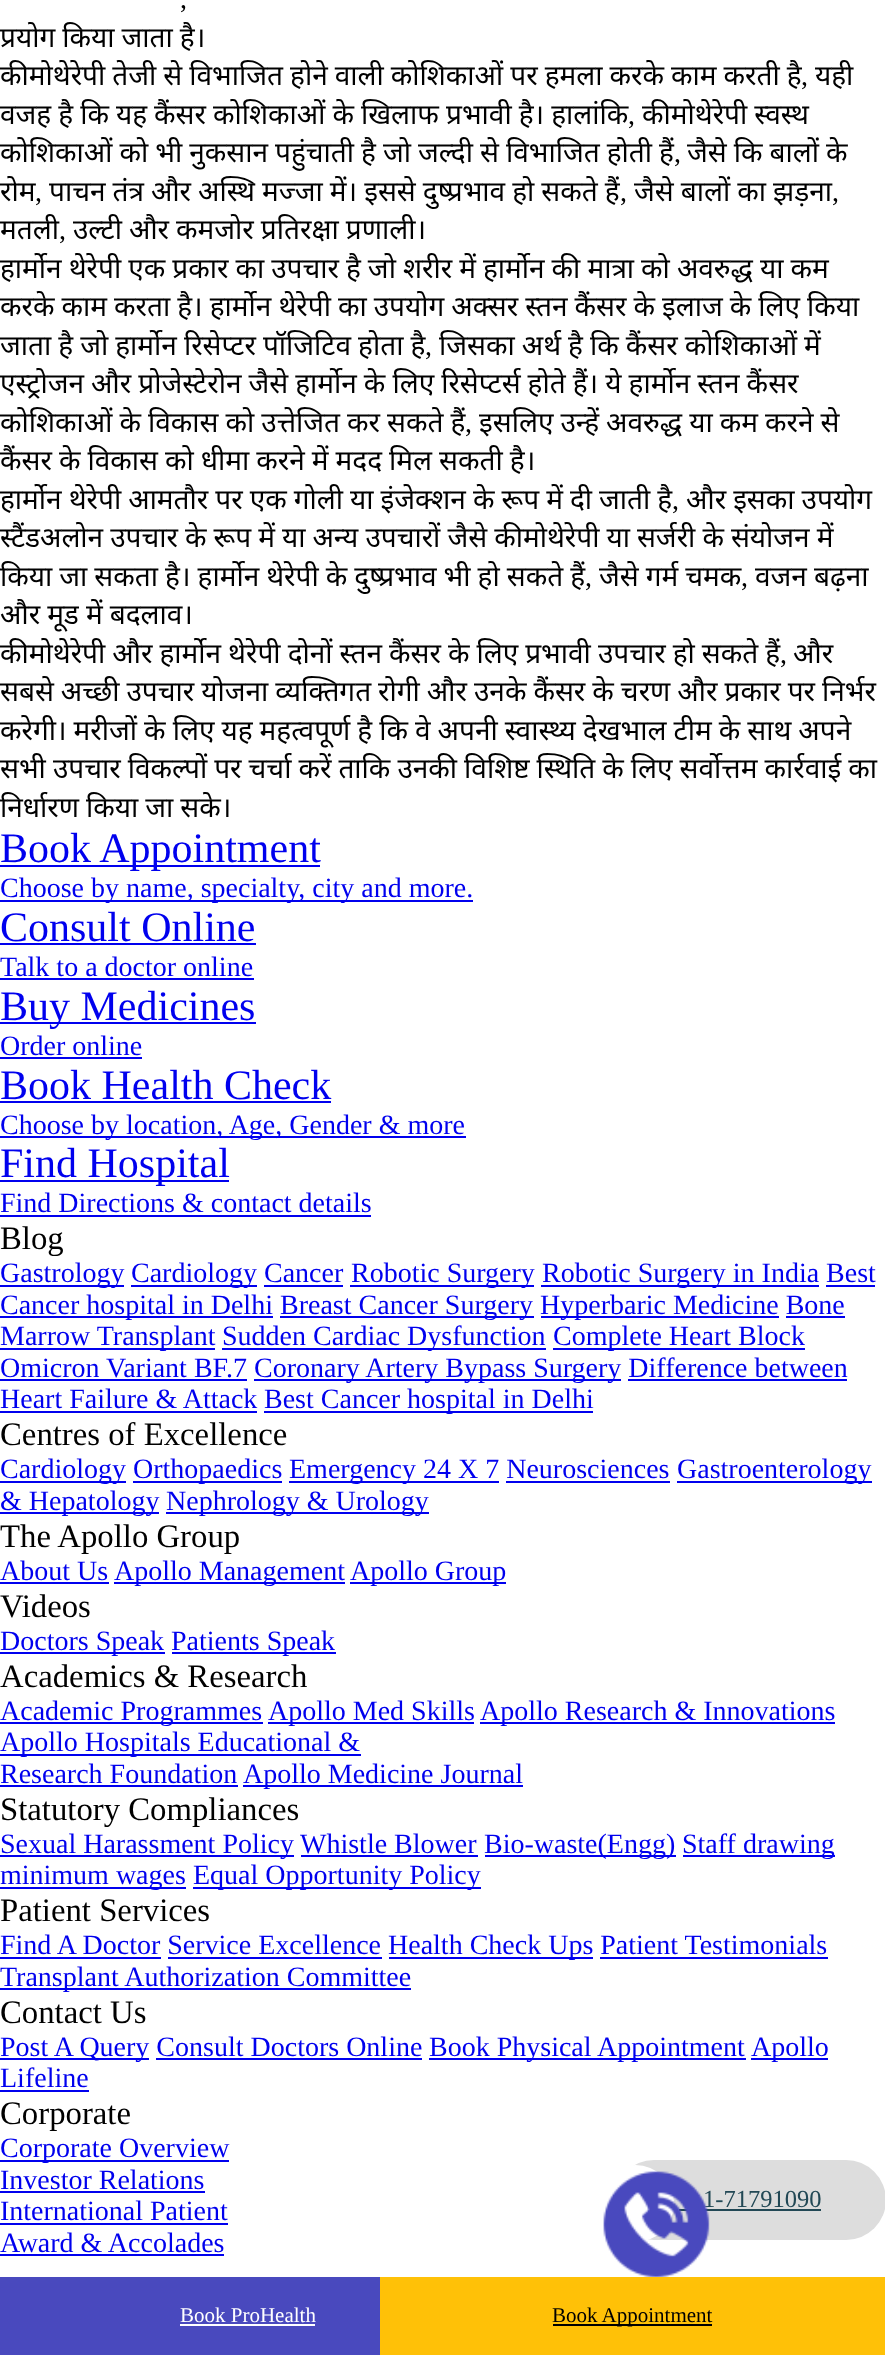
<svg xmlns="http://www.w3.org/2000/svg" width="885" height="2355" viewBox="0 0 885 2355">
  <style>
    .t1 { font: 28px Liberation Serif; fill: #000; }
    .t2 { font: 28px Noto Sans; fill: #000; }
    .t3 { font: 42px Liberation Serif; fill: #00e; }
    .t4 { font: 28px Liberation Serif; fill: #00e; }
    .t5 { font: 32.75px Liberation Serif; fill: #000; }
    .t6 { font: 24.5px Liberation Serif; fill: #224855; }
    .t7 { font: 21px Liberation Serif; fill: #fff; }
    .t8 { font: 21px Liberation Serif; fill: #000; }
  </style>
  <rect width="100%" height="100%" fill="#fff"/>
  <text x="180" y="8" class="t1">,</text>
  <text x="0" y="47" word-spacing="-0.25" class="t2">प्रयोग किया जाता है।</text>
  <text x="0" y="85" word-spacing="-0.25" class="t2">कीमोथेरेपी तेजी से विभाजित होने वाली कोशिकाओं पर हमला करके काम करती है</text>
  <text x="801" y="85" class="t1">,</text>
  <text x="815" y="85" class="t2">यही</text>
  <text x="0" y="124" word-spacing="-0.25" class="t2">वजह है कि यह कैंसर कोशिकाओं के खिलाफ प्रभावी है। हालांकि</text>
  <text x="628" y="124" class="t1">,</text>
  <text x="642" y="124" word-spacing="-0.25" class="t2">कीमोथेरेपी स्वस्थ</text>
  <text x="0" y="162" word-spacing="-0.25" class="t2">कोशिकाओं को भी नुकसान पहुंचाती है जो जल्दी से विभाजित होती हैं</text>
  <text x="674" y="162" class="t1">,</text>
  <text x="687" y="162" word-spacing="-0.25" class="t2">जैसे कि बालों के</text>
  <text x="0" y="201" class="t2">रोम</text>
  <text x="35" y="201" class="t1">,</text>
  <text x="49" y="201" word-spacing="-0.25" class="t2">पाचन तंत्र और अस्थि मज्जा में। इससे दुष्प्रभाव हो सकते हैं</text>
  <text x="620" y="201" class="t1">,</text>
  <text x="634" y="201" word-spacing="-0.25" class="t2">जैसे बालों का झड़ना</text>
  <text x="832" y="201" class="t1">,</text>
  <text x="0" y="239" class="t2">मतली</text>
  <text x="59" y="239" class="t1">,</text>
  <text x="73" y="239" word-spacing="-0.25" class="t2">उल्टी और कमजोर प्रतिरक्षा प्रणाली।</text>
  <text x="0" y="278" word-spacing="-0.25" class="t2">हार्मोन थेरेपी एक प्रकार का उपचार है जो शरीर में हार्मोन की मात्रा को अवरुद्ध या कम</text>
  <text x="0" y="316" word-spacing="-0.25" class="t2">करके काम करता है। हार्मोन थेरेपी का उपयोग अक्सर स्तन कैंसर के इलाज के लिए किया</text>
  <text x="0" y="355" word-spacing="-0.25" class="t2">जाता है जो हार्मोन रिसेप्टर पॉजिटिव होता है</text>
  <text x="425" y="355" class="t1">,</text>
  <text x="439" y="355" word-spacing="-0.25" class="t2">जिसका अर्थ है कि कैंसर कोशिकाओं में</text>
  <text x="0" y="393" word-spacing="-0.25" class="t2">एस्ट्रोजन और प्रोजेस्टेरोन जैसे हार्मोन के लिए रिसेप्टर्स होते हैं। ये हार्मोन स्तन कैंसर</text>
  <text x="0" y="432" word-spacing="-0.25" class="t2">कोशिकाओं के विकास को उत्तेजित कर सकते हैं</text>
  <text x="465" y="432" class="t1">,</text>
  <text x="479" y="432" word-spacing="-0.25" class="t2">इसलिए उन्हें अवरुद्ध या कम करने से</text>
  <text x="0" y="470" word-spacing="-0.25" class="t2">कैंसर के विकास को धीमा करने में मदद मिल सकती है।</text>
  <text x="0" y="509" word-spacing="-0.25" class="t2">हार्मोन थेरेपी आमतौर पर एक गोली या इंजेक्शन के रूप में दी जाती है</text>
  <text x="672" y="509" class="t1">,</text>
  <text x="686" y="509" word-spacing="-0.25" class="t2">और इसका उपयोग</text>
  <text x="0" y="547" word-spacing="-0.25" class="t2">स्टैंडअलोन उपचार के रूप में या अन्य उपचारों जैसे कीमोथेरेपी या सर्जरी के संयोजन में</text>
  <text x="0" y="586" word-spacing="-0.25" class="t2">किया जा सकता है। हार्मोन थेरेपी के दुष्प्रभाव भी हो सकते हैं</text>
  <text x="585" y="586" class="t1">,</text>
  <text x="599" y="586" word-spacing="-0.25" class="t2">जैसे गर्म चमक</text>
  <text x="755" y="586" word-spacing="-0.25" class="t2">वजन बढ़ना</text>
  <text x="741" y="586" class="t1">,</text>
  <text x="0" y="624" word-spacing="-0.25" class="t2">और मूड में बदलाव।</text>
  <text x="0" y="663" word-spacing="-0.25" class="t2">कीमोथेरेपी और हार्मोन थेरेपी दोनों स्तन कैंसर के लिए प्रभावी उपचार हो सकते हैं</text>
  <text x="780" y="663" class="t1">,</text>
  <text x="793" y="663" class="t2">और</text>
  <text x="0" y="701" word-spacing="-0.25" class="t2">सबसे अच्छी उपचार योजना व्यक्तिगत रोगी और उनके कैंसर के चरण और प्रकार पर निर्भर</text>
  <text x="0" y="740" word-spacing="-0.25" class="t2">करेगी। मरीजों के लिए यह महत्वपूर्ण है कि वे अपनी स्वास्थ्य देखभाल टीम के साथ अपने</text>
  <text x="0" y="778" word-spacing="-0.25" class="t2">सभी उपचार विकल्पों पर चर्चा करें ताकि उनकी विशिष्ट स्थिति के लिए सर्वोत्तम कार्रवाई का</text>
  <text x="0" y="817" word-spacing="-0.25" class="t2">निर्धारण किया जा सके।</text>
  <rect x="0" y="865" width="320" height="2" fill="#00e"/>
  <text x="0" y="862" class="t3">Book Appointment</text>
  <rect x="0" y="900" width="473" height="2" fill="#00e"/>
  <text x="0" y="897" class="t4">Choose by name, specialty, city and more.</text>
  <text x="0" y="941" class="t3">Consult Online</text>
  <rect x="0" y="943" width="256" height="2" fill="#00e"/>
  <text x="0" y="976" class="t4">Talk to a doctor online</text>
  <rect x="0" y="978" width="254" height="2" fill="#00e"/>
  <rect x="0" y="1022" width="256" height="2" fill="#00e"/>
  <text x="0" y="1020" class="t3">Buy Medicines</text>
  <text x="0" y="1055" class="t4">Order online</text>
  <rect x="0" y="1057" width="142" height="2" fill="#00e"/>
  <text x="0" y="1099" class="t3">Book Health Check</text>
  <rect x="0" y="1101" width="331" height="2" fill="#00e"/>
  <rect x="0" y="1136" width="466" height="2" fill="#00e"/>
  <text x="0" y="1134" class="t4">Choose by location, Age, Gender &amp; more</text>
  <rect x="0" y="1180" width="229" height="2" fill="#00e"/>
  <text x="0" y="1177" class="t3">Find Hospital</text>
  <text x="0" y="1212" class="t4">Find Directions &amp; contact details</text>
  <rect x="0" y="1215" width="371" height="2" fill="#00e"/>
  <text x="0" y="1249" class="t5">Blog</text>
  <rect x="0" y="1285" width="124" height="2" fill="#00e"/>
  <text x="0" y="1282" class="t4">Gastrology</text>
  <rect x="131" y="1285" width="126" height="2" fill="#00e"/>
  <text x="131" y="1282" class="t4">Cardiology Cancer</text>
  <rect x="350" y="1285" width="184" height="2" fill="#00e"/>
  <text x="351" y="1282" class="t4">Robotic Surgery</text>
  <rect x="541" y="1285" width="278" height="2" fill="#00e"/>
  <text x="542" y="1282" class="t4">Robotic Surgery in India Best</text>
  <rect x="264" y="1285" width="79" height="2" fill="#00e"/>
  <rect x="0" y="1316" width="273" height="2" fill="#00e"/>
  <text x="0" y="1314" class="t4">Cancer hospital in Delhi</text>
  <rect x="826" y="1285" width="49" height="2" fill="#00e"/>
  <rect x="280" y="1316" width="254" height="2" fill="#00e"/>
  <text x="280" y="1314" class="t4">Breast Cancer Surgery</text>
  <rect x="541" y="1316" width="238" height="2" fill="#00e"/>
  <text x="540" y="1314" class="t4">Hyperbaric Medicine Bone</text>
  <rect x="0" y="1348" width="215" height="2" fill="#00e"/>
  <text x="0" y="1345" class="t4">Marrow Transplant</text>
  <rect x="786" y="1316" width="59" height="2" fill="#00e"/>
  <rect x="222" y="1348" width="324" height="2" fill="#00e"/>
  <text x="222" y="1345" class="t4">Sudden Cardiac Dysfunction</text>
  <rect x="553" y="1348" width="252" height="2" fill="#00e"/>
  <text x="553" y="1345" class="t4">Complete Heart Block</text>
  <text x="0" y="1377" class="t4">Omicron Variant BF.7</text>
  <rect x="0" y="1379" width="247" height="2" fill="#00e"/>
  <rect x="254" y="1379" width="367" height="2" fill="#00e"/>
  <text x="254" y="1377" class="t4">Coronary Artery Bypass Surgery Difference between</text>
  <text x="0" y="1408" class="t4">Heart Failure &amp; Attack</text>
  <rect x="628" y="1379" width="219" height="2" fill="#00e"/>
  <rect x="0" y="1411" width="257" height="2" fill="#00e"/>
  <rect x="264" y="1411" width="329" height="2" fill="#00e"/>
  <text x="264" y="1408" class="t4">Best Cancer hospital in Delhi</text>
  <text x="0" y="1445" class="t5">Centres of Excellence</text>
  <rect x="0" y="1481" width="126" height="2" fill="#00e"/>
  <text x="0" y="1478" class="t4">Cardiology</text>
  <rect x="133" y="1481" width="149" height="2" fill="#00e"/>
  <text x="133" y="1478" class="t4">Orthopaedics</text>
  <rect x="289" y="1481" width="210" height="2" fill="#00e"/>
  <text x="289" y="1478" class="t4">Emergency 24 X 7 Neurosciences</text>
  <rect x="677" y="1481" width="195" height="2" fill="#00e"/>
  <text x="677" y="1478" class="t4">Gastroenterology</text>
  <rect x="506" y="1481" width="164" height="2" fill="#00e"/>
  <rect x="0" y="1512" width="159" height="2" fill="#00e"/>
  <text x="0" y="1510" class="t4">&amp; Hepatology</text>
  <rect x="166" y="1512" width="263" height="2" fill="#00e"/>
  <text x="166" y="1510" class="t4">Nephrology &amp; Urology</text>
  <text x="0" y="1547" class="t5">The Apollo Group</text>
  <text x="0" y="1580" class="t4">About Us</text>
  <rect x="0" y="1582" width="109" height="2" fill="#00e"/>
  <rect x="114" y="1582" width="231" height="2" fill="#00e"/>
  <text x="114" y="1580" class="t4">Apollo Management</text>
  <rect x="350" y="1582" width="156" height="2" fill="#00e"/>
  <text x="350" y="1580" class="t4">Apollo Group</text>
  <text x="0" y="1617" class="t5">Videos</text>
  <rect x="0" y="1652" width="165" height="2" fill="#00e"/>
  <text x="0" y="1650" class="t4">Doctors Speak</text>
  <rect x="172" y="1652" width="164" height="2" fill="#00e"/>
  <text x="171" y="1650" class="t4">Patients Speak</text>
  <text x="0" y="1687" class="t5">Academics &amp; Research</text>
  <rect x="0" y="1722" width="263" height="2" fill="#00e"/>
  <text x="0" y="1720" class="t4">Academic Programmes</text>
  <rect x="268" y="1722" width="206" height="2" fill="#00e"/>
  <text x="268" y="1720" class="t4">Apollo Med Skills</text>
  <rect x="480" y="1722" width="355" height="2" fill="#00e"/>
  <text x="480" y="1720" class="t4">Apollo Research &amp; Innovations</text>
  <rect x="0" y="1754" width="361" height="2" fill="#00e"/>
  <text x="0" y="1751" class="t4">Apollo Hospitals Educational &amp;</text>
  <text x="0" y="1783" class="t4">Research Foundation</text>
  <rect x="0" y="1785" width="238" height="2" fill="#00e"/>
  <rect x="243" y="1785" width="280" height="2" fill="#00e"/>
  <text x="243" y="1783" class="t4">Apollo Medicine Journal</text>
  <text x="0" y="1820" class="t5">Statutory Compliances</text>
  <rect x="0" y="1855" width="294" height="2" fill="#00e"/>
  <text x="0" y="1853" class="t4">Sexual Harassment Policy</text>
  <text x="300" y="1853" class="t4">Whistle Blower</text>
  <rect x="301" y="1855" width="177" height="2" fill="#00e"/>
  <rect x="485" y="1855" width="191" height="2" fill="#00e"/>
  <text x="484" y="1853" class="t4">Bio-waste(Engg)</text>
  <rect x="683" y="1855" width="152" height="2" fill="#00e"/>
  <text x="682" y="1853" class="t4">Staff drawing</text>
  <rect x="0" y="1887" width="186" height="2" fill="#00e"/>
  <text x="0" y="1884" class="t4">minimum wages</text>
  <rect x="193" y="1887" width="288" height="2" fill="#00e"/>
  <text x="193" y="1884" class="t4">Equal Opportunity Policy</text>
  <text x="0" y="1921" class="t5">Patient Services</text>
  <text x="0" y="1954" class="t4">Find A Doctor Service Excellence</text>
  <rect x="0" y="1957" width="161" height="2" fill="#00e"/>
  <rect x="389" y="1957" width="204" height="2" fill="#00e"/>
  <text x="388" y="1954" class="t4">Health Check Ups Patient Testimonials</text>
  <rect x="168" y="1957" width="214" height="2" fill="#00e"/>
  <rect x="600" y="1957" width="228" height="2" fill="#00e"/>
  <rect x="0" y="1988" width="411" height="2" fill="#00e"/>
  <text x="0" y="1986" class="t4">Transplant Authorization Committee</text>
  <text x="0" y="2023" class="t5">Contact Us</text>
  <rect x="0" y="2058" width="149" height="2" fill="#00e"/>
  <text x="0" y="2056" class="t4">Post A Query Consult Doctors Online</text>
  <rect x="429" y="2058" width="317" height="2" fill="#00e"/>
  <text x="429" y="2056" class="t4">Book Physical Appointment</text>
  <rect x="751" y="2058" width="77" height="2" fill="#00e"/>
  <text x="751" y="2056" class="t4">Apollo</text>
  <rect x="156" y="2058" width="266" height="2" fill="#00e"/>
  <text x="0" y="2087" class="t4">Lifeline</text>
  <rect x="0" y="2090" width="89" height="2" fill="#00e"/>
  <text x="0" y="2124" class="t5">Corporate</text>
  <rect x="0" y="2160" width="229" height="2" fill="#00e"/>
  <text x="0" y="2157" class="t4">Corporate Overview</text>
  <text x="0" y="2189" class="t4">Investor Relations</text>
  <rect x="0" y="2191" width="205" height="2" fill="#00e"/>
  <text x="0" y="2220" class="t4">International Patient</text>
  <rect x="0" y="2223" width="228" height="2" fill="#00e"/>
  <text x="0" y="2252" class="t4">Award &amp; Accolades</text>
  <rect x="0" y="2254" width="224" height="2" fill="#00e"/>
  <rect x="614" y="2160" width="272" height="80" rx="40" fill="#ddd"/>
  <circle cx="635.5" cy="2203.5" r="38.5" fill="#fff"/>
  <text x="703" y="2207" class="t6">1-71791090</text>
  <rect x="679" y="2209" width="142" height="2" fill="#224855"/>
  <image x="603" y="2171" width="107" height="106" href="images/1.png"/>
  <rect x="0" y="2277" width="380" height="78" fill="#4949be"/>
  <text x="180" y="2322" class="t7">Book ProHealth</text>
  <rect x="180" y="2324" width="135" height="2" fill="#fff"/>
  <rect x="380" y="2277" width="505" height="78" fill="#ffc107"/>
  <rect x="553" y="2324" width="159" height="2" fill="#000"/>
  <text x="552" y="2322" class="t8">Book Appointment</text>
</svg>
